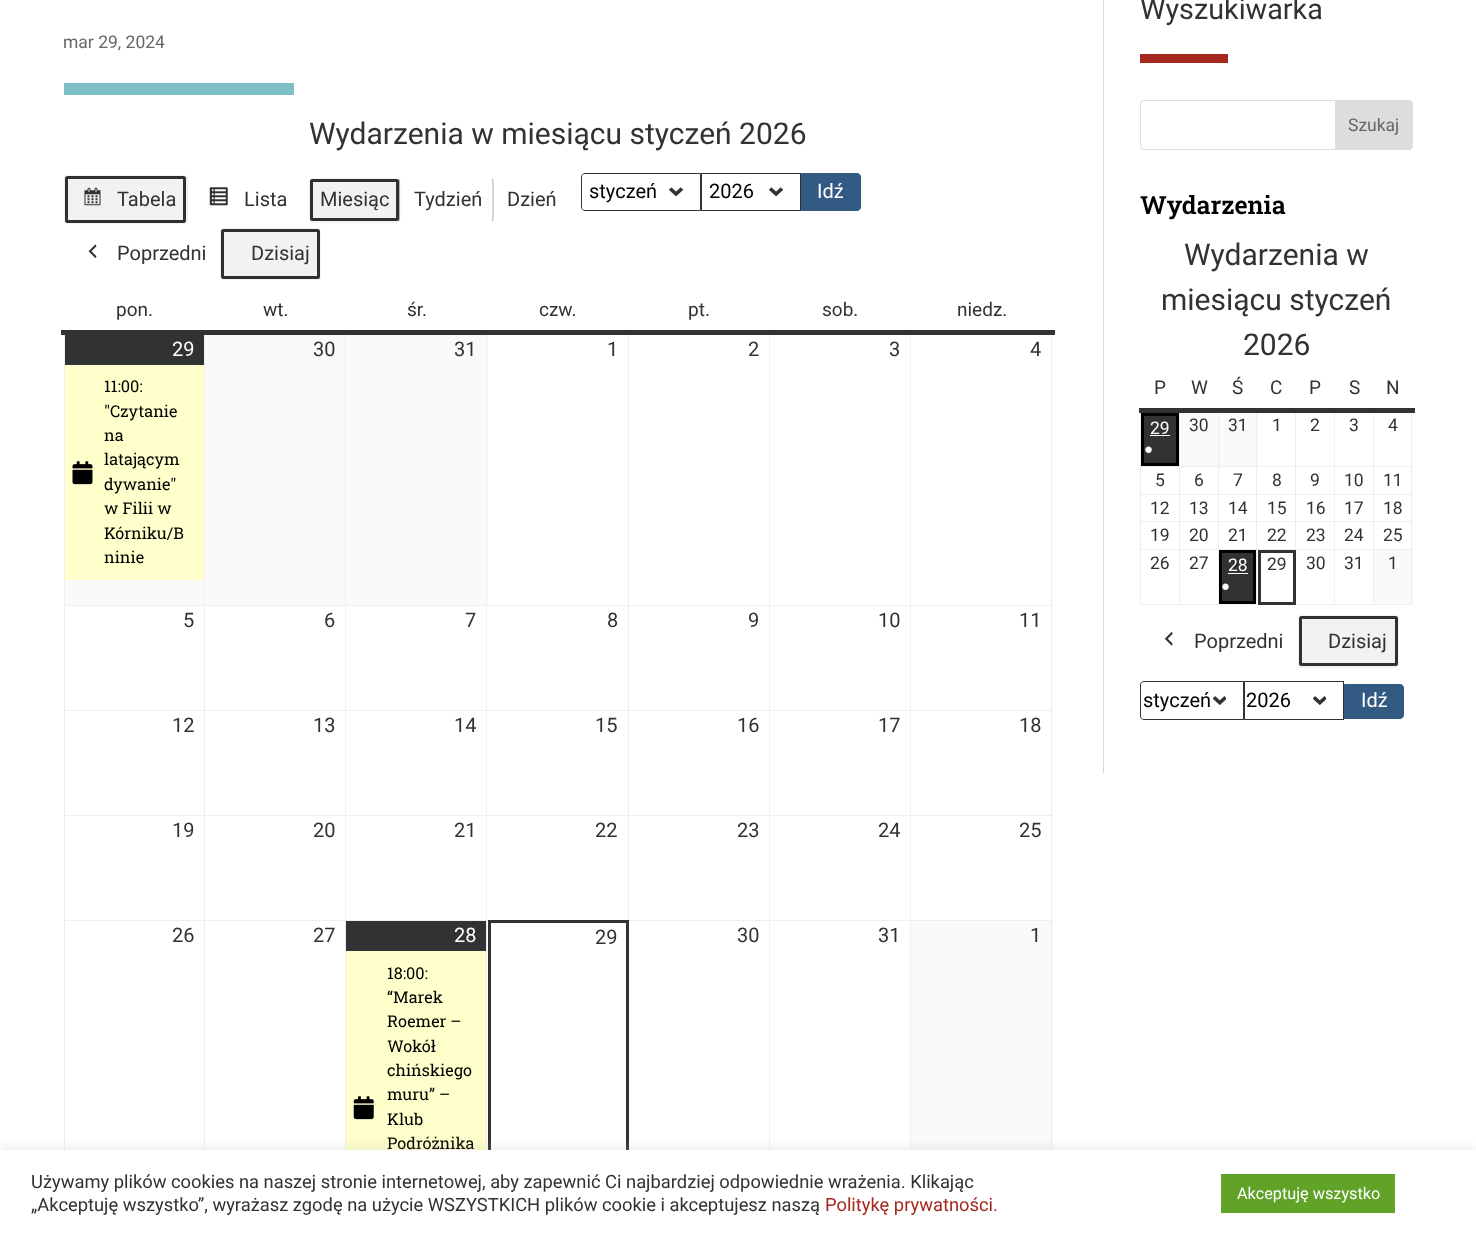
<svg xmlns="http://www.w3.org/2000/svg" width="1476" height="1236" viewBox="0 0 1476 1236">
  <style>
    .t1 { font: 17.5px Roboto; fill: #666; }
    .t2 { font: 30px Roboto; fill: #313233; }
    .t3 { font: 20px Roboto; fill: #313233; }
    .t4 { font: 20px Roboto; fill: #000; }
    .t5 { font: 20px Roboto; fill: #fff; }
    .t6 { font: 19px Roboto; fill: #313233; }
    .t7 { font: 16.25px Roboto Slab; fill: #000; }
    .t8 { font: 28.75px Roboto; fill: #313233; }
    .t9 { font: 600 25px Roboto Slab; fill: #000; }
    .t10 { font: 17.5px Roboto; fill: #fff; }
    .t11 { font: 15px Liberation Serif; fill: #fff; }
    .t12 { font: 17.5px Roboto; fill: #313233; }
    .t13 { font: 18.33px Roboto; fill: #313233; }
    .t14 { font: 18.33px Roboto; fill: #a4281e; }
    .t15 { font: 16.25px Roboto; fill: #fff; }
  </style>
  <rect width="100%" height="100%" fill="#fff"/>
  <text x="63" y="48" class="t1">mar 29, 2024</text>
  <rect x="64" y="83" width="230" height="12" fill="#7ebec5"/>
  <text x="309" y="144" class="t2">Wydarzenia w miesiącu styczeń 2026</text>
  <rect x="64" y="175" width="124" height="49" rx="4" fill="#f2f2f2"/>
  <rect x="66.5" y="177.5" width="118" height="44" rx="1" fill="none" stroke="#2f3030" stroke-width="3"/>
  <image x="84" y="187" width="17" height="19" href="images/1.png"/>
  <text x="117" y="206" class="t3">Tabela</text>
  <image x="209" y="187" width="19" height="19" href="images/2.png"/>
  <text x="244" y="206" class="t3">Lista</text>
  <rect x="309" y="178" width="91" height="45" rx="4" fill="#f2f2f2"/>
  <path d="M398.5 179L399.5 181V219L398.5 221" fill="none" stroke="#b2b2b2" stroke-width="1.2"/>
  <rect x="311.5" y="180.5" width="86" height="39" rx="1" fill="none" stroke="#2f3030" stroke-width="3"/>
  <text x="320" y="206" class="t3">Miesiąc</text>
  <path d="M492 179L493 181V219L492 221" fill="none" stroke="#bbb" stroke-width="1.2"/>
  <text x="414" y="206" class="t3">Tydzień</text>
  <text x="507" y="206" class="t3">Dzień</text>
  <image x="669" y="187" width="15" height="10" href="images/3.png"/>
  <path d="M585 173.5H700.5V210.5H585C583 210.5 581.5 209 581.5 207V177C581.5 175 583 173.5 585 173.5Z" fill="none" stroke="#313233"/>
  <text x="589" y="198" class="t4">styczeń</text>
  <image x="769" y="187" width="15" height="10" href="images/3.png"/>
  <rect x="701.5" y="173.5" width="99" height="37" fill="none" stroke="#313233"/>
  <text x="709" y="198" class="t4">2026</text>
  <path d="M801.5 173.5H857C859 173.5 860.5 175 860.5 177V207C860.5 209 859 210.5 857 210.5H801.5Z" fill="#335a82" stroke="#335a82"/>
  <text x="817" y="198" class="t5">Idź</text>
  <image x="88" y="244" width="9" height="15" href="images/4.png"/>
  <text x="117" y="260" class="t3">Poprzedni</text>
  <rect x="220" y="228" width="101" height="52" rx="4" fill="#f2f2f2"/>
  <rect x="222.5" y="230.5" width="96" height="47" rx="1" fill="none" stroke="#2f3030" stroke-width="3"/>
  <text x="251" y="260" class="t3">Dzisiaj</text>
  <rect x="910" y="605" width="143" height="1" fill="#efefef"/>
  <rect x="910" y="710" width="143" height="1" fill="#efefef"/>
  <rect x="910" y="815" width="143" height="1" fill="#efefef"/>
  <rect x="910" y="920" width="143" height="1" fill="#efefef"/>
  <rect x="910" y="920" width="1" height="230" fill="#efefef"/>
  <rect x="769" y="920" width="142" height="1" fill="#efefef"/>
  <rect x="910" y="815" width="1" height="106" fill="#efefef"/>
  <rect x="769" y="815" width="142" height="1" fill="#efefef"/>
  <rect x="910" y="710" width="1" height="106" fill="#efefef"/>
  <rect x="769" y="710" width="142" height="1" fill="#efefef"/>
  <rect x="910" y="605" width="1" height="106" fill="#efefef"/>
  <rect x="769" y="605" width="142" height="1" fill="#efefef"/>
  <rect x="769" y="920" width="1" height="230" fill="#efefef"/>
  <rect x="628" y="920" width="142" height="1" fill="#efefef"/>
  <rect x="769" y="815" width="1" height="106" fill="#efefef"/>
  <rect x="628" y="815" width="142" height="1" fill="#efefef"/>
  <rect x="769" y="710" width="1" height="106" fill="#efefef"/>
  <rect x="628" y="710" width="142" height="1" fill="#efefef"/>
  <rect x="769" y="605" width="1" height="106" fill="#efefef"/>
  <rect x="628" y="605" width="142" height="1" fill="#efefef"/>
  <rect x="628" y="815" width="1" height="106" fill="#efefef"/>
  <rect x="486" y="815" width="143" height="1" fill="#efefef"/>
  <rect x="628" y="710" width="1" height="106" fill="#efefef"/>
  <rect x="486" y="710" width="143" height="1" fill="#efefef"/>
  <rect x="628" y="605" width="1" height="106" fill="#efefef"/>
  <rect x="486" y="605" width="143" height="1" fill="#efefef"/>
  <rect x="486" y="920" width="1" height="230" fill="#efefef"/>
  <rect x="345" y="920" width="143" height="1" fill="#efefef"/>
  <rect x="486" y="815" width="1" height="106" fill="#efefef"/>
  <rect x="345" y="815" width="143" height="1" fill="#efefef"/>
  <rect x="486" y="710" width="1" height="106" fill="#efefef"/>
  <rect x="345" y="710" width="143" height="1" fill="#efefef"/>
  <rect x="486" y="605" width="1" height="106" fill="#efefef"/>
  <rect x="345" y="605" width="143" height="1" fill="#efefef"/>
  <rect x="345" y="920" width="1" height="230" fill="#efefef"/>
  <rect x="204" y="920" width="142" height="1" fill="#efefef"/>
  <rect x="345" y="815" width="1" height="106" fill="#efefef"/>
  <rect x="204" y="815" width="142" height="1" fill="#efefef"/>
  <rect x="345" y="710" width="1" height="106" fill="#efefef"/>
  <rect x="204" y="710" width="142" height="1" fill="#efefef"/>
  <rect x="345" y="605" width="1" height="106" fill="#efefef"/>
  <rect x="204" y="605" width="142" height="1" fill="#efefef"/>
  <rect x="204" y="920" width="1" height="230" fill="#efefef"/>
  <rect x="64" y="920" width="141" height="1" fill="#efefef"/>
  <rect x="204" y="815" width="1" height="106" fill="#efefef"/>
  <rect x="64" y="815" width="141" height="1" fill="#efefef"/>
  <rect x="204" y="710" width="1" height="106" fill="#efefef"/>
  <rect x="64" y="710" width="141" height="1" fill="#efefef"/>
  <rect x="204" y="605" width="1" height="106" fill="#efefef"/>
  <rect x="64" y="605" width="141" height="1" fill="#efefef"/>
  <rect x="204" y="331" width="1" height="275" fill="#efefef"/>
  <rect x="345" y="331" width="1" height="275" fill="#efefef"/>
  <rect x="346" y="335" width="142" height="270" fill="#fafafa"/>
  <rect x="486" y="331" width="1" height="275" fill="#efefef"/>
  <rect x="628" y="331" width="1" height="275" fill="#efefef"/>
  <rect x="769" y="331" width="1" height="275" fill="#efefef"/>
  <rect x="910" y="331" width="1" height="275" fill="#efefef"/>
  <rect x="64" y="920" width="1" height="230" fill="#efefef"/>
  <rect x="64" y="815" width="1" height="106" fill="#efefef"/>
  <rect x="64" y="710" width="1" height="106" fill="#efefef"/>
  <rect x="64" y="331" width="1" height="380" fill="#efefef"/>
  <rect x="911" y="921" width="142" height="229" fill="#fafafa"/>
  <rect x="1051" y="920" width="1" height="230" fill="#efefef"/>
  <rect x="1051" y="815" width="1" height="106" fill="#efefef"/>
  <rect x="1051" y="710" width="1" height="106" fill="#efefef"/>
  <rect x="1051" y="331" width="1" height="380" fill="#efefef"/>
  <rect x="61" y="330" width="994" height="5" fill="#313233"/>
  <text x="116" y="316" class="t6">pon.</text>
  <text x="263" y="316" class="t6">wt.</text>
  <text x="407" y="316" class="t6">śr.</text>
  <text x="539" y="316" class="t6">czw.</text>
  <text x="688" y="316" class="t6">pt.</text>
  <text x="822" y="316" class="t6">sob.</text>
  <text x="957" y="316" class="t6">niedz.</text>
  <rect x="65" y="580" width="139" height="25" fill="#fafafa"/>
  <rect x="65" y="335" width="139" height="30" fill="#313233"/>
  <text x="172" y="356" class="t5">29</text>
  <rect x="65" y="365" width="139" height="215" fill="#ffc"/>
  <image x="72" y="461" width="21" height="24" href="images/5.png"/>
  <text x="104" y="392" class="t7">11:00:</text>
  <text x="104" y="417" class="t7">"Czytanie</text>
  <text x="104" y="441" class="t7">na</text>
  <text x="104" y="465" class="t7">latającym</text>
  <text x="104" y="490" class="t7">dywanie"</text>
  <text x="104" y="514" class="t7">w Filii w</text>
  <text x="104" y="539" class="t7">Kórniku/B</text>
  <text x="104" y="563" class="t7">ninie</text>
  <rect x="205" y="335" width="140" height="270" fill="#fafafa"/>
  <text x="313" y="356" class="t3">30</text>
  <text x="454" y="356" class="t3">31</text>
  <text x="607" y="356" class="t3">1</text>
  <text x="748" y="356" class="t3">2</text>
  <text x="889" y="356" class="t3">3</text>
  <text x="1030" y="356" class="t3">4</text>
  <text x="183" y="627" class="t3">5</text>
  <text x="324" y="627" class="t3">6</text>
  <text x="465" y="627" class="t3">7</text>
  <text x="607" y="627" class="t3">8</text>
  <text x="748" y="627" class="t3">9</text>
  <text x="878" y="627" class="t3">10</text>
  <text x="1019" y="627" class="t3">11</text>
  <text x="172" y="732" class="t3">12</text>
  <text x="313" y="732" class="t3">13</text>
  <text x="454" y="732" class="t3">14</text>
  <text x="595" y="732" class="t3">15</text>
  <text x="737" y="732" class="t3">16</text>
  <text x="878" y="732" class="t3">17</text>
  <text x="1019" y="732" class="t3">18</text>
  <text x="172" y="837" class="t3">19</text>
  <text x="313" y="837" class="t3">20</text>
  <text x="454" y="837" class="t3">21</text>
  <text x="595" y="837" class="t3">22</text>
  <text x="737" y="837" class="t3">23</text>
  <text x="878" y="837" class="t3">24</text>
  <text x="1019" y="837" class="t3">25</text>
  <text x="172" y="942" class="t3">26</text>
  <text x="313" y="942" class="t3">27</text>
  <rect x="346" y="921" width="140" height="30" fill="#313233"/>
  <text x="454" y="942" class="t5">28</text>
  <rect x="346" y="951" width="140" height="199" fill="#ffc"/>
  <image x="353" y="1096" width="21" height="24" href="images/6.png"/>
  <text x="387" y="979" class="t7">18:00:</text>
  <text x="387" y="1003" class="t7">“Marek</text>
  <text x="387" y="1027" class="t7">Roemer –</text>
  <text x="387" y="1052" class="t7">Wokół</text>
  <text x="387" y="1076" class="t7">chińskiego</text>
  <text x="387" y="1100" class="t7">muru” –</text>
  <text x="387" y="1125" class="t7">Klub</text>
  <text x="387" y="1149" class="t7">Podróżnika</text>
  <rect x="489.5" y="921.5" width="138" height="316" fill="none" stroke="#313233" stroke-width="3"/>
  <text x="595" y="944" class="t3">29</text>
  <text x="737" y="942" class="t3">30</text>
  <text x="878" y="942" class="t3">31</text>
  <text x="1030" y="942" class="t3">1</text>
  <rect x="1103" y="0" width="1" height="773" fill="#d8d8d8"/>
  <text x="1140" y="19" class="t8">Wyszukiwarka</text>
  <rect x="1140" y="54" width="88" height="9" fill="#a4281e"/>
  <rect x="1140.5" y="100.5" width="272" height="49" rx="3.5" fill="none" stroke="#ddd"/>
  <path d="M1335.5 100.5H1409C1411 100.5 1412.5 102 1412.5 104V146C1412.5 148 1411 149.5 1409 149.5H1335.5Z" fill="#ddd" stroke="#ddd"/>
  <text x="1348" y="131" class="t1">Szukaj</text>
  <text x="1140" y="214" class="t9">Wydarzenia</text>
  <text x="1184" y="265" class="t2">Wydarzenia w</text>
  <text x="1161" y="310" class="t2">miesiącu styczeń</text>
  <text x="1243" y="355" class="t2">2026</text>
  <rect x="1180" y="413" width="38" height="55" fill="#fafafa"/>
  <rect x="1219" y="413" width="39" height="55" fill="#fafafa"/>
  <rect x="1373" y="466" width="40" height="1" fill="#efefef"/>
  <rect x="1373" y="494" width="40" height="1" fill="#efefef"/>
  <rect x="1373" y="521" width="40" height="1" fill="#efefef"/>
  <rect x="1373" y="549" width="40" height="1" fill="#efefef"/>
  <rect x="1374" y="550" width="39" height="54" fill="#fafafa"/>
  <rect x="1411" y="549" width="1" height="56" fill="#efefef"/>
  <rect x="1373" y="604" width="40" height="1" fill="#efefef"/>
  <rect x="1373" y="549" width="1" height="56" fill="#efefef"/>
  <rect x="1334" y="549" width="40" height="1" fill="#efefef"/>
  <rect x="1373" y="521" width="1" height="29" fill="#efefef"/>
  <rect x="1334" y="521" width="40" height="1" fill="#efefef"/>
  <rect x="1373" y="494" width="1" height="29" fill="#efefef"/>
  <rect x="1334" y="494" width="40" height="1" fill="#efefef"/>
  <rect x="1373" y="466" width="1" height="29" fill="#efefef"/>
  <rect x="1334" y="466" width="40" height="1" fill="#efefef"/>
  <rect x="1334" y="604" width="40" height="1" fill="#efefef"/>
  <rect x="1334" y="549" width="1" height="56" fill="#efefef"/>
  <rect x="1295" y="549" width="40" height="1" fill="#efefef"/>
  <rect x="1334" y="521" width="1" height="29" fill="#efefef"/>
  <rect x="1295" y="521" width="40" height="1" fill="#efefef"/>
  <rect x="1334" y="494" width="1" height="29" fill="#efefef"/>
  <rect x="1295" y="494" width="40" height="1" fill="#efefef"/>
  <rect x="1334" y="466" width="1" height="29" fill="#efefef"/>
  <rect x="1295" y="466" width="40" height="1" fill="#efefef"/>
  <rect x="1295" y="521" width="1" height="29" fill="#efefef"/>
  <rect x="1256" y="521" width="40" height="1" fill="#efefef"/>
  <rect x="1295" y="494" width="1" height="29" fill="#efefef"/>
  <rect x="1256" y="494" width="40" height="1" fill="#efefef"/>
  <rect x="1295" y="466" width="1" height="29" fill="#efefef"/>
  <rect x="1256" y="466" width="40" height="1" fill="#efefef"/>
  <rect x="1256" y="549" width="1" height="56" fill="#efefef"/>
  <rect x="1218" y="549" width="40" height="1" fill="#efefef"/>
  <rect x="1256" y="549" width="40" height="1" fill="#efefef"/>
  <rect x="1256" y="521" width="1" height="29" fill="#efefef"/>
  <rect x="1218" y="521" width="40" height="1" fill="#efefef"/>
  <rect x="1256" y="494" width="1" height="29" fill="#efefef"/>
  <rect x="1218" y="494" width="40" height="1" fill="#efefef"/>
  <rect x="1256" y="466" width="1" height="29" fill="#efefef"/>
  <rect x="1218" y="466" width="40" height="1" fill="#efefef"/>
  <rect x="1218" y="604" width="40" height="1" fill="#efefef"/>
  <rect x="1218" y="549" width="1" height="56" fill="#efefef"/>
  <rect x="1179" y="549" width="40" height="1" fill="#efefef"/>
  <rect x="1218" y="521" width="1" height="29" fill="#efefef"/>
  <rect x="1179" y="521" width="40" height="1" fill="#efefef"/>
  <rect x="1218" y="494" width="1" height="29" fill="#efefef"/>
  <rect x="1179" y="494" width="40" height="1" fill="#efefef"/>
  <rect x="1218" y="466" width="1" height="29" fill="#efefef"/>
  <rect x="1179" y="466" width="40" height="1" fill="#efefef"/>
  <rect x="1179" y="604" width="40" height="1" fill="#efefef"/>
  <rect x="1179" y="549" width="1" height="56" fill="#efefef"/>
  <rect x="1140" y="549" width="40" height="1" fill="#efefef"/>
  <rect x="1179" y="521" width="1" height="29" fill="#efefef"/>
  <rect x="1140" y="521" width="40" height="1" fill="#efefef"/>
  <rect x="1179" y="494" width="1" height="29" fill="#efefef"/>
  <rect x="1140" y="494" width="40" height="1" fill="#efefef"/>
  <rect x="1179" y="466" width="1" height="29" fill="#efefef"/>
  <rect x="1140" y="466" width="40" height="1" fill="#efefef"/>
  <rect x="1179" y="410" width="1" height="58" fill="#efefef"/>
  <rect x="1218" y="410" width="1" height="58" fill="#efefef"/>
  <rect x="1256" y="410" width="1" height="58" fill="#efefef"/>
  <rect x="1295" y="410" width="1" height="58" fill="#efefef"/>
  <rect x="1334" y="410" width="1" height="58" fill="#efefef"/>
  <rect x="1373" y="410" width="1" height="58" fill="#efefef"/>
  <rect x="1140" y="604" width="40" height="1" fill="#efefef"/>
  <rect x="1140" y="549" width="1" height="56" fill="#efefef"/>
  <rect x="1140" y="521" width="1" height="29" fill="#efefef"/>
  <rect x="1140" y="494" width="1" height="29" fill="#efefef"/>
  <rect x="1140" y="410" width="1" height="85" fill="#efefef"/>
  <rect x="1411" y="521" width="1" height="29" fill="#efefef"/>
  <rect x="1411" y="494" width="1" height="29" fill="#efefef"/>
  <rect x="1411" y="410" width="1" height="85" fill="#efefef"/>
  <rect x="1139" y="408" width="276" height="5" fill="#313233"/>
  <text x="1154" y="394" class="t6">P</text>
  <text x="1191" y="394" class="t6">W</text>
  <text x="1232" y="394" class="t6">Ś</text>
  <text x="1270" y="394" class="t6">C</text>
  <text x="1309" y="394" class="t6">P</text>
  <text x="1349" y="394" class="t6">S</text>
  <text x="1386" y="394" class="t6">N</text>
  <rect x="1141" y="467" width="38" height="1" fill="#fafafa"/>
  <rect x="1142.5" y="414.5" width="35" height="50" fill="#313233" stroke="#000" stroke-width="3"/>
  <text x="1150" y="434" class="t10">29</text>
  <rect x="1150" y="435" width="20" height="1" fill="#fff"/>
  <text x="1144" y="454" class="t11">●</text>
  <text x="1189" y="431" class="t12">30</text>
  <text x="1228" y="431" class="t12">31</text>
  <text x="1272" y="431" class="t12">1</text>
  <text x="1310" y="431" class="t12">2</text>
  <text x="1349" y="431" class="t12">3</text>
  <text x="1388" y="431" class="t12">4</text>
  <text x="1155" y="486" class="t12">5</text>
  <text x="1194" y="486" class="t12">6</text>
  <text x="1233" y="486" class="t12">7</text>
  <text x="1272" y="486" class="t12">8</text>
  <text x="1310" y="486" class="t12">9</text>
  <text x="1344" y="486" class="t12">10</text>
  <text x="1383" y="486" class="t12">11</text>
  <text x="1150" y="514" class="t12">12</text>
  <text x="1189" y="514" class="t12">13</text>
  <text x="1228" y="514" class="t12">14</text>
  <text x="1267" y="514" class="t12">15</text>
  <text x="1306" y="514" class="t12">16</text>
  <text x="1344" y="514" class="t12">17</text>
  <text x="1383" y="514" class="t12">18</text>
  <text x="1150" y="541" class="t12">19</text>
  <text x="1189" y="541" class="t12">20</text>
  <text x="1228" y="541" class="t12">21</text>
  <text x="1267" y="541" class="t12">22</text>
  <text x="1306" y="541" class="t12">23</text>
  <text x="1344" y="541" class="t12">24</text>
  <text x="1383" y="541" class="t12">25</text>
  <text x="1150" y="569" class="t12">26</text>
  <text x="1189" y="569" class="t12">27</text>
  <rect x="1220.5" y="551.5" width="34" height="51" fill="#313233" stroke="#000" stroke-width="3"/>
  <text x="1228" y="571" class="t10">28</text>
  <rect x="1228" y="573" width="20" height="1" fill="#fff"/>
  <text x="1221" y="591" class="t11">●</text>
  <rect x="1295" y="604" width="40" height="1" fill="#efefef"/>
  <rect x="1259.5" y="551.5" width="35" height="52" fill="none" stroke="#313233" stroke-width="3"/>
  <text x="1267" y="570" class="t12">29</text>
  <text x="1306" y="569" class="t12">30</text>
  <text x="1344" y="569" class="t12">31</text>
  <text x="1388" y="569" class="t12">1</text>
  <image x="1164" y="631" width="9" height="15" href="images/7.png"/>
  <text x="1194" y="648" class="t3">Poprzedni</text>
  <rect x="1298" y="615" width="101" height="53" rx="4" fill="#f2f2f2"/>
  <rect x="1300.5" y="617.5" width="96" height="47" rx="1" fill="none" stroke="#2f3030" stroke-width="3"/>
  <text x="1328" y="648" class="t3">Dzisiaj</text>
  <image x="1213" y="696" width="13" height="9" href="images/8.png"/>
  <path d="M1144 681.5H1243.5V719.5H1144C1142 719.5 1140.5 718 1140.5 716V685C1140.5 683 1142 681.5 1144 681.5Z" fill="none" stroke="#313233"/>
  <text x="1143" y="707" class="t4">styczeń</text>
  <image x="1313" y="696" width="13" height="9" href="images/8.png"/>
  <rect x="1244.5" y="681.5" width="99" height="38" fill="none" stroke="#313233"/>
  <text x="1246" y="707" class="t4">2026</text>
  <path d="M1344.5 684.5H1400C1402 684.5 1403.5 686 1403.5 688V715C1403.5 717 1402 718.5 1400 718.5H1344.5Z" fill="#335a82" stroke="#335a82"/>
  <text x="1361" y="707" class="t5">Idź</text>
  <rect x="0" y="1149" width="1476" height="86" fill="#acabab4d" filter="blur(6px)"/>
  <rect x="0" y="1150" width="1476" height="86" fill="#fff"/>
  <text x="31" y="1188" class="t13">Używamy plików cookies na naszej stronie internetowej, aby zapewnić Ci najbardziej odpowiednie wrażenia. Klikając</text>
  <text x="31" y="1211" class="t13">„Akceptuję wszystko”, wyrażasz zgodę na użycie WSZYSTKICH plików cookie i akceptujesz naszą</text>
  <text x="825" y="1211" class="t14">Politykę prywatności.</text>
  <rect x="1221" y="1174" width="174" height="39" fill="#61a229"/>
  <text x="1237" y="1199" class="t15">Akceptuję wszystko</text>
</svg>
